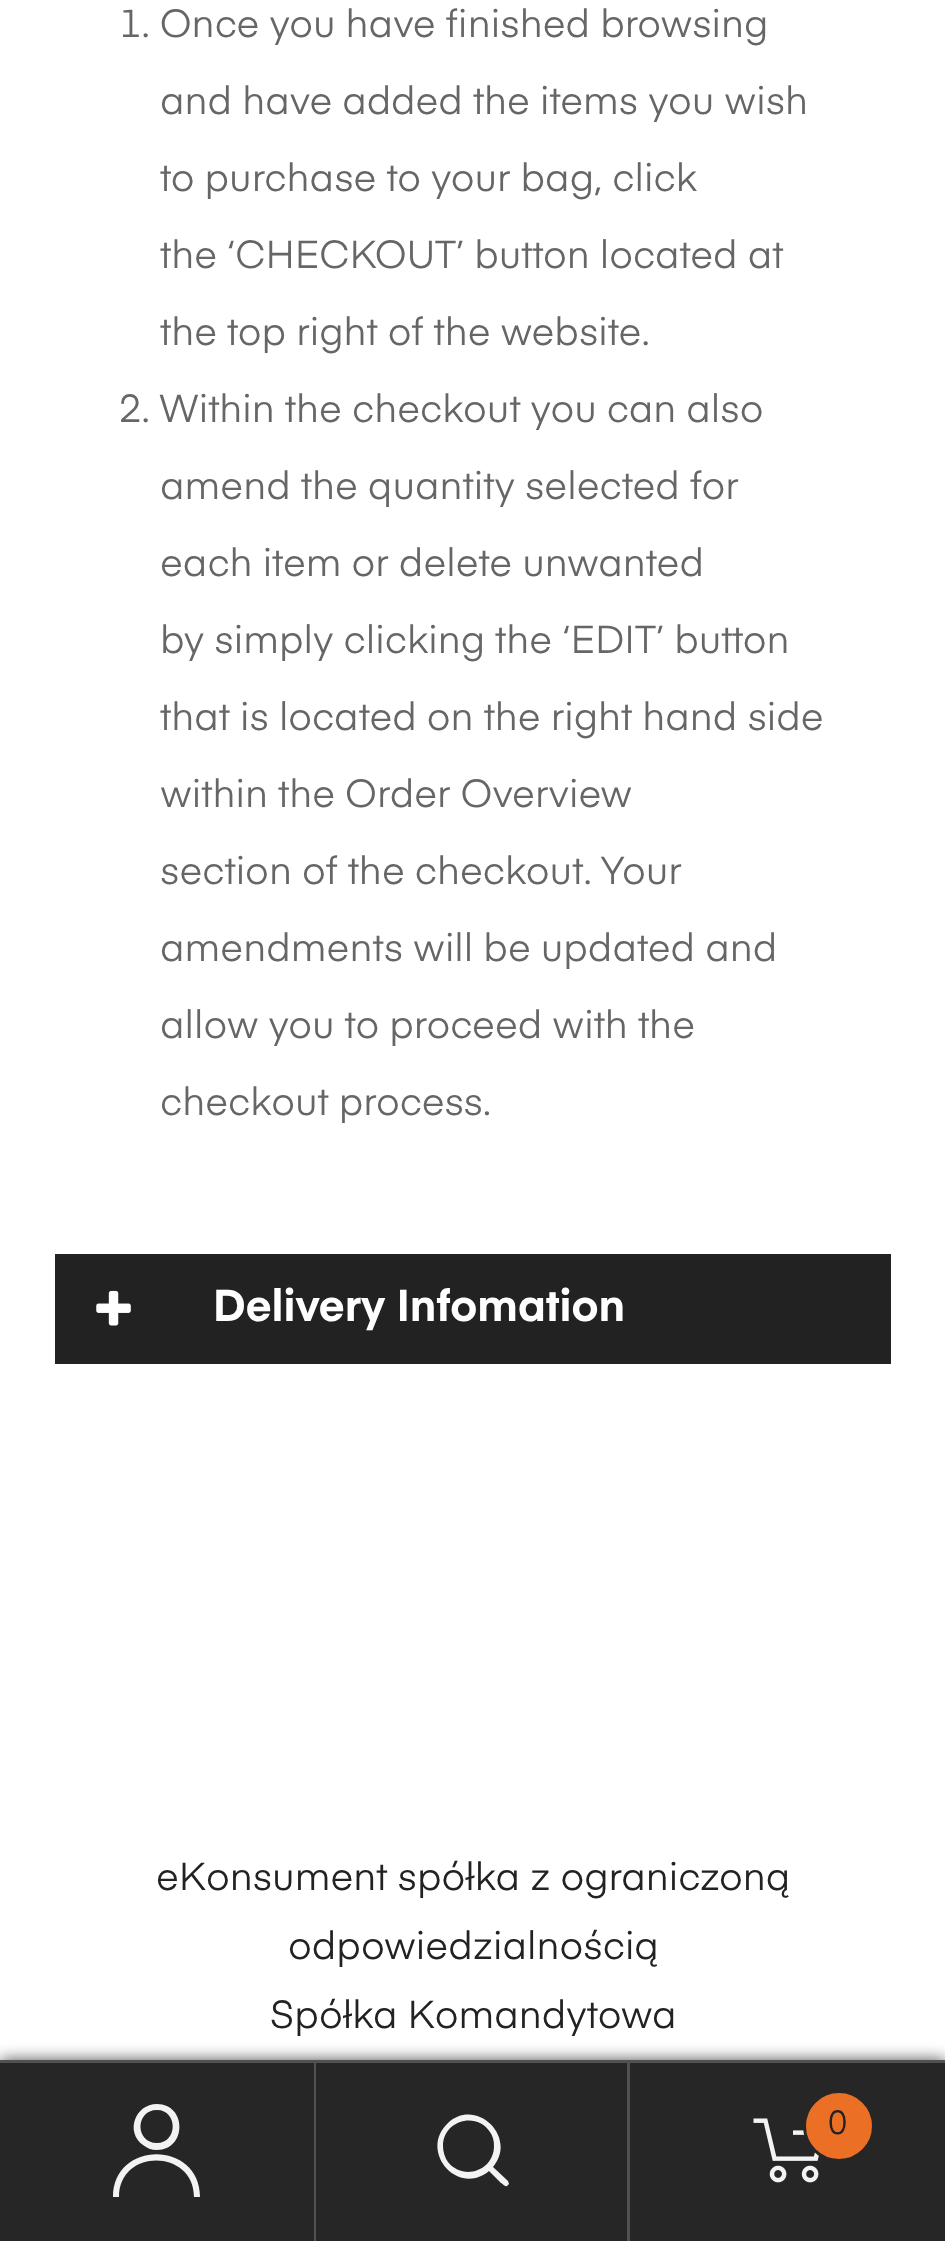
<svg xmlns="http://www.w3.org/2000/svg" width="945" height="2241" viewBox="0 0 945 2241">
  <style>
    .t1 { font: 38.5px 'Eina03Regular'; fill: #666; }
    .t2 { font: bold 44px 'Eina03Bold'; fill: #fff; }
    .t3 { font: 38.5px 'Eina03Regular'; fill: #222; }
    .t4 { font: 33px 'Eina03Regular'; fill: #222; }
  </style>
  <rect width="100%" height="100%" fill="#fff"/>
  <text x="119" y="37" class="t1">1. Once you have finished browsing</text>
  <text x="160" y="114" class="t1">and have added the items you wish</text>
  <text x="160" y="191" class="t1">to purchase to your bag, click</text>
  <text x="160" y="268" class="t1">the ‘CHECKOUT’ button located at</text>
  <text x="160" y="345" class="t1">the top right of the website.</text>
  <text x="119" y="422" class="t1">2. Within the checkout you can also</text>
  <text x="160" y="499" class="t1">amend the quantity selected for</text>
  <text x="160" y="576" class="t1">each item or delete unwanted</text>
  <text x="160" y="653" class="t1">by simply clicking the ‘EDIT’ button</text>
  <text x="160" y="730" class="t1">that is located on the right hand side</text>
  <text x="160" y="807" class="t1">within the Order Overview</text>
  <text x="160" y="884" class="t1">section of the checkout. Your</text>
  <text x="160" y="961" class="t1">amendments will be updated and</text>
  <text x="160" y="1038" class="t1">allow you to proceed with the</text>
  <text x="160" y="1115" class="t1">checkout process.</text>
  <rect x="55" y="1254" width="836" height="110" fill="#222"/>
  <image x="96" y="1290" width="35" height="36" href="images/1.png"/>
  <text x="213" y="1321" class="t2">Delivery Infomation</text>
  <text x="156" y="1890" class="t3">eKonsument spółka z ograniczoną</text>
  <text x="288" y="1959" class="t3">odpowiedzialnością</text>
  <text x="270" y="2028" class="t3">Spółka Komandytowa</text>
  <rect x="0" y="2060" width="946" height="181" fill="#000000b3" filter="blur(8px)"/>
  <rect x="0" y="2063" width="945" height="178" fill="#262626"/>
  <rect x="0" y="2060" width="945" height="3" fill="#515151"/>
  <rect x="314" y="2063" width="2" height="178" fill="#515151"/>
  <path d="M194 2197C194 2149 119 2148 119 2197H113C113 2140 200 2140 200 2197ZM157 2150C151 2150 147 2148 143 2145C125 2132 135 2104 157 2104C187 2104 187 2150 157 2150ZM157 2110C135 2110 135 2143 157 2143C178 2143 178 2110 157 2110Z" fill="#f3f3f3"/>
  <rect x="627" y="2063" width="3" height="178" fill="#515151"/>
  <path d="M508 2181L493 2167C518 2137 476 2097 448 2123C418 2151 458 2197 489 2171L501 2183C503 2184 505 2187 507 2186L509 2184ZM443 2146C443 2121 476 2111 490 2132C493 2136 494 2141 494 2146C494 2171 463 2181 448 2162C445 2158 443 2152 443 2146Z" fill="#f3f3f3"/>
  <image x="753" y="2118" width="66" height="65" href="images/2.png"/>
  <circle cx="839" cy="2126" r="34.5" fill="#eb7025" stroke="#262626" stroke-width="3"/>
  <text x="828" y="2134" class="t4">0</text>
</svg>
